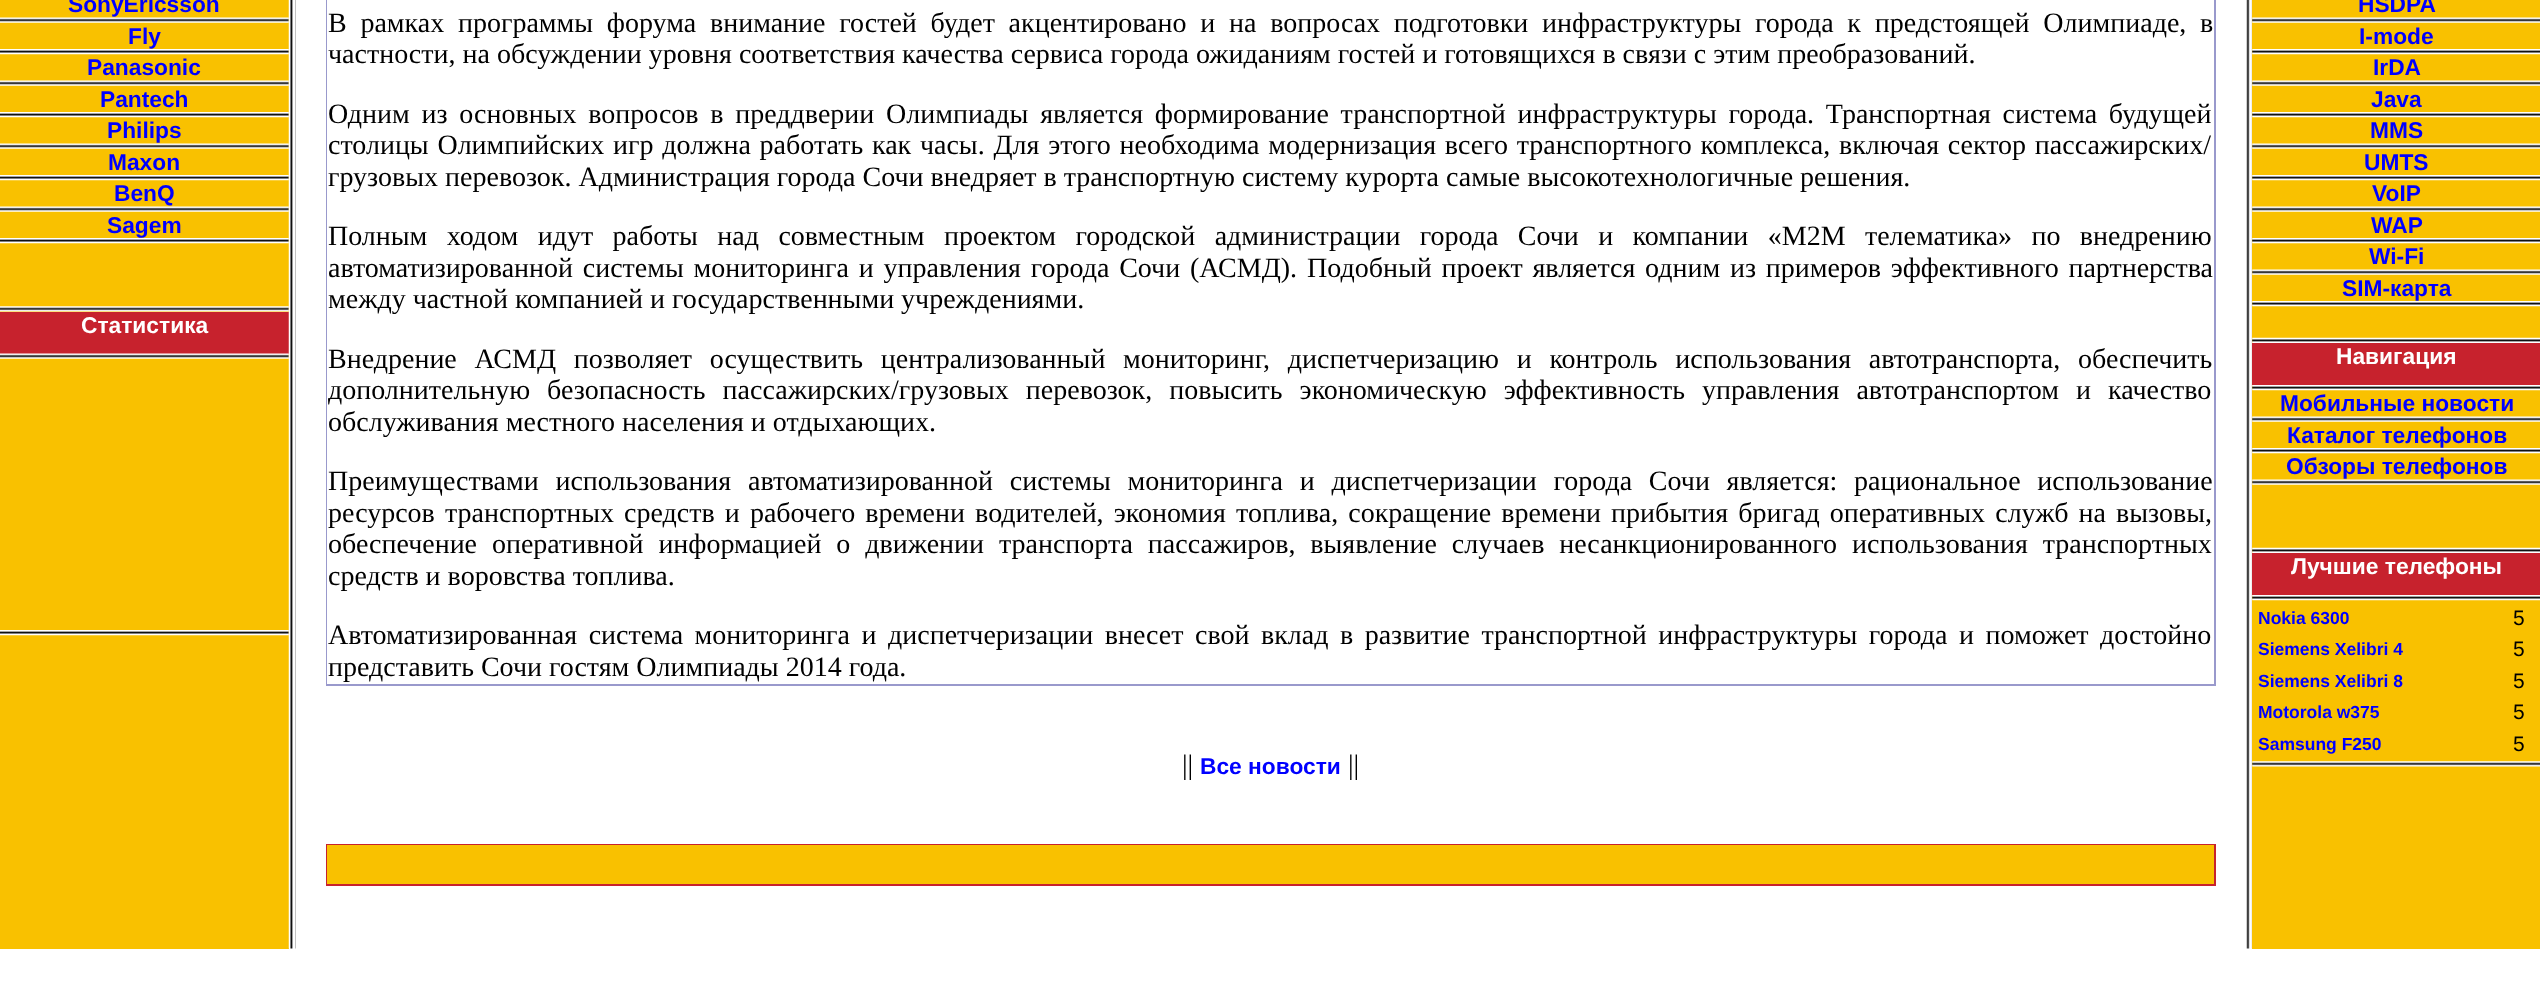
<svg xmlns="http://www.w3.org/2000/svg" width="2540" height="993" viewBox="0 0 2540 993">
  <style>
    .t1 { font: bold 22.75px Liberation Sans; fill: #00f; }
    .t2 { font: bold 22.75px Liberation Sans; fill: #fff; }
    .t3 { font: 28px Liberation Serif; fill: #000; }
    .t4 { font: bold 17.5px Liberation Sans; fill: #00f; }
    .t5 { font: 21px Liberation Sans; fill: #000; }
  </style>
  <rect width="100%" height="100%" fill="#fff"/>
  <rect x="0" y="0" width="289" height="949" fill="#f9c100"/>
  <text x="68" y="12" class="t1">SonyEricsson</text>
  <image x="0" y="17" width="289" height="6" href="images/1.png"/>
  <text x="128" y="44" class="t1">Fly</text>
  <image x="0" y="49" width="289" height="6" href="images/2.png"/>
  <text x="87" y="75" class="t1">Panasonic</text>
  <image x="0" y="80" width="289" height="6" href="images/1.png"/>
  <text x="100" y="107" class="t1">Pantech</text>
  <image x="0" y="112" width="289" height="6" href="images/2.png"/>
  <text x="107" y="138" class="t1">Philips</text>
  <image x="0" y="143" width="289" height="6" href="images/1.png"/>
  <text x="108" y="170" class="t1">Maxon</text>
  <image x="0" y="175" width="289" height="6" href="images/3.png"/>
  <text x="114" y="201" class="t1">BenQ</text>
  <image x="0" y="206" width="289" height="6" href="images/1.png"/>
  <text x="107" y="233" class="t1">Sagem</text>
  <image x="0" y="238" width="289" height="6" href="images/3.png"/>
  <image x="0" y="306" width="289" height="6" href="images/4.png"/>
  <rect x="0" y="312" width="289" height="42" fill="#c7222d"/>
  <text x="81" y="333" class="t2">Статистика</text>
  <image x="0" y="353" width="289" height="6" href="images/5.png"/>
  <image x="0" y="630" width="289" height="6" href="images/2.png"/>
  <image x="288" y="0" width="8" height="949" href="images/6.png"/>
  <image x="2246" y="0" width="6" height="949" href="images/7.png"/>
  <rect x="326" y="0" width="1890" height="686" fill="#99c"/>
  <rect x="327" y="0" width="1887" height="684" fill="#fff"/>
  <text x="328" y="32" word-spacing="6.75" class="t3">В рамках программы форума внимание гостей будет акцентировано и на вопросах подготовки инфраструктуры города к предстоящей Олимпиаде, в</text>
  <text x="328" y="63" class="t3">частности, на обсуждении уровня соответствия качества сервиса города ожиданиям гостей и готовящихся в связи с этим преобразований.</text>
  <text x="328" y="123" word-spacing="4.75" class="t3">Одним из основных вопросов в преддверии Олимпиады является формирование транспортной инфраструктуры города. Транспортная система будущей</text>
  <text x="328" y="154" word-spacing="1.75" class="t3">столицы Олимпийских игр должна работать как часы. Для этого необходима модернизация всего транспортного комплекса, включая сектор пассажирских/</text>
  <text x="328" y="186" class="t3">грузовых перевозок. Администрация города Сочи внедряет в транспортную систему курорта самые высокотехнологичные решения.</text>
  <text x="328" y="245" word-spacing="12.4" class="t3">Полным ходом идут работы над совместным проектом городской администрации города Сочи и компании «М2М телематика» по внедрению</text>
  <text x="328" y="277" word-spacing="2.75" class="t3">автоматизированной системы мониторинга и управления города Сочи (АСМД).</text>
  <text x="1307" y="277" word-spacing="2.75" class="t3">Подобный проект является одним из примеров эффективного партнерства</text>
  <text x="328" y="308" class="t3">между частной компанией и государственными учреждениями.</text>
  <text x="328" y="368" word-spacing="10.75" class="t3">Внедрение АСМД позволяет осуществить централизованный мониторинг, диспетчеризацию и контроль использования автотранспорта, обеспечить</text>
  <text x="328" y="399" word-spacing="10" class="t3">дополнительную безопасность пассажирских/грузовых перевозок, повысить экономическую эффективность управления автотранспортом и качество</text>
  <text x="328" y="431" class="t3">обслуживания местного населения и отдыхающих.</text>
  <text x="328" y="490" word-spacing="9.75" class="t3">Преимуществами использования автоматизированной системы мониторинга и диспетчеризации города Сочи является: рациональное использование</text>
  <text x="328" y="522" word-spacing="3.1" class="t3">ресурсов транспортных средств и рабочего времени водителей, экономия топлива, сокращение времени прибытия бригад оперативных служб на вызовы,</text>
  <text x="328" y="553" word-spacing="7.9" class="t3">обеспечение оперативной информацией о движении транспорта пассажиров, выявление случаев несанкционированного использования транспортных</text>
  <text x="328" y="585" class="t3">средств и воровства топлива.</text>
  <text x="328" y="644" word-spacing="4.5" class="t3">Автоматизированная система мониторинга и диспетчеризации внесет свой вклад в развитие транспортной инфраструктуры города и поможет достойно</text>
  <text x="328" y="676" class="t3">представить Сочи гостям Олимпиады 2014 года.</text>
  <text x="1182" y="774" class="t3">||</text>
  <text x="1200" y="774" class="t1">Все новости</text>
  <text x="1348" y="774" class="t3">||</text>
  <rect x="326" y="844" width="1890" height="42" fill="#c7222d"/>
  <rect x="327" y="845" width="1887" height="39" fill="#f9c100"/>
  <rect x="2252" y="0" width="288" height="949" fill="#f9c100"/>
  <text x="2358" y="12" class="t1">HSDPA</text>
  <image x="2252" y="17" width="288" height="6" href="images/8.png"/>
  <text x="2359" y="44" class="t1">I-mode</text>
  <image x="2252" y="49" width="288" height="6" href="images/9.png"/>
  <text x="2373" y="75" class="t1">IrDA</text>
  <image x="2252" y="80" width="288" height="6" href="images/8.png"/>
  <text x="2371" y="107" class="t1">Java</text>
  <image x="2252" y="112" width="288" height="6" href="images/9.png"/>
  <text x="2370" y="138" class="t1">MMS</text>
  <image x="2252" y="143" width="288" height="6" href="images/8.png"/>
  <text x="2364" y="170" class="t1">UMTS</text>
  <image x="2252" y="175" width="288" height="6" href="images/10.png"/>
  <text x="2372" y="201" class="t1">VoIP</text>
  <image x="2252" y="206" width="288" height="6" href="images/8.png"/>
  <text x="2371" y="233" class="t1">WAP</text>
  <image x="2252" y="238" width="288" height="6" href="images/10.png"/>
  <text x="2369" y="264" class="t1">Wi-Fi</text>
  <image x="2252" y="269" width="288" height="6" href="images/8.png"/>
  <text x="2342" y="296" class="t1">SIM-карта</text>
  <image x="2252" y="301" width="288" height="6" href="images/10.png"/>
  <image x="2252" y="337" width="288" height="6" href="images/11.png"/>
  <rect x="2252" y="343" width="288" height="42" fill="#c7222d"/>
  <text x="2336" y="364" class="t2">Навигация</text>
  <image x="2252" y="385" width="288" height="6" href="images/10.png"/>
  <text x="2280" y="411" class="t1">Мобильные новости</text>
  <image x="2252" y="416" width="288" height="6" href="images/8.png"/>
  <text x="2287" y="443" class="t1">Каталог телефонов</text>
  <image x="2252" y="448" width="288" height="6" href="images/9.png"/>
  <text x="2286" y="474" class="t1">Обзоры телефонов</text>
  <image x="2252" y="479" width="288" height="6" href="images/8.png"/>
  <image x="2252" y="547" width="288" height="6" href="images/12.png"/>
  <rect x="2252" y="553" width="288" height="42" fill="#c7222d"/>
  <text x="2291" y="574" class="t2">Лучшие телефоны</text>
  <image x="2252" y="595" width="288" height="6" href="images/9.png"/>
  <text x="2258" y="624" class="t4">Nokia 6300</text>
  <text x="2513" y="625" class="t5">5</text>
  <text x="2258" y="655" class="t4">Siemens Xelibri 4</text>
  <text x="2513" y="656" class="t5">5</text>
  <text x="2258" y="687" class="t4">Siemens Xelibri 8</text>
  <text x="2513" y="688" class="t5">5</text>
  <text x="2258" y="718" class="t4">Motorola w375</text>
  <text x="2513" y="719" class="t5">5</text>
  <text x="2258" y="750" class="t4">Samsung F250</text>
  <text x="2513" y="751" class="t5">5</text>
  <image x="2252" y="761" width="288" height="6" href="images/13.png"/>
</svg>
